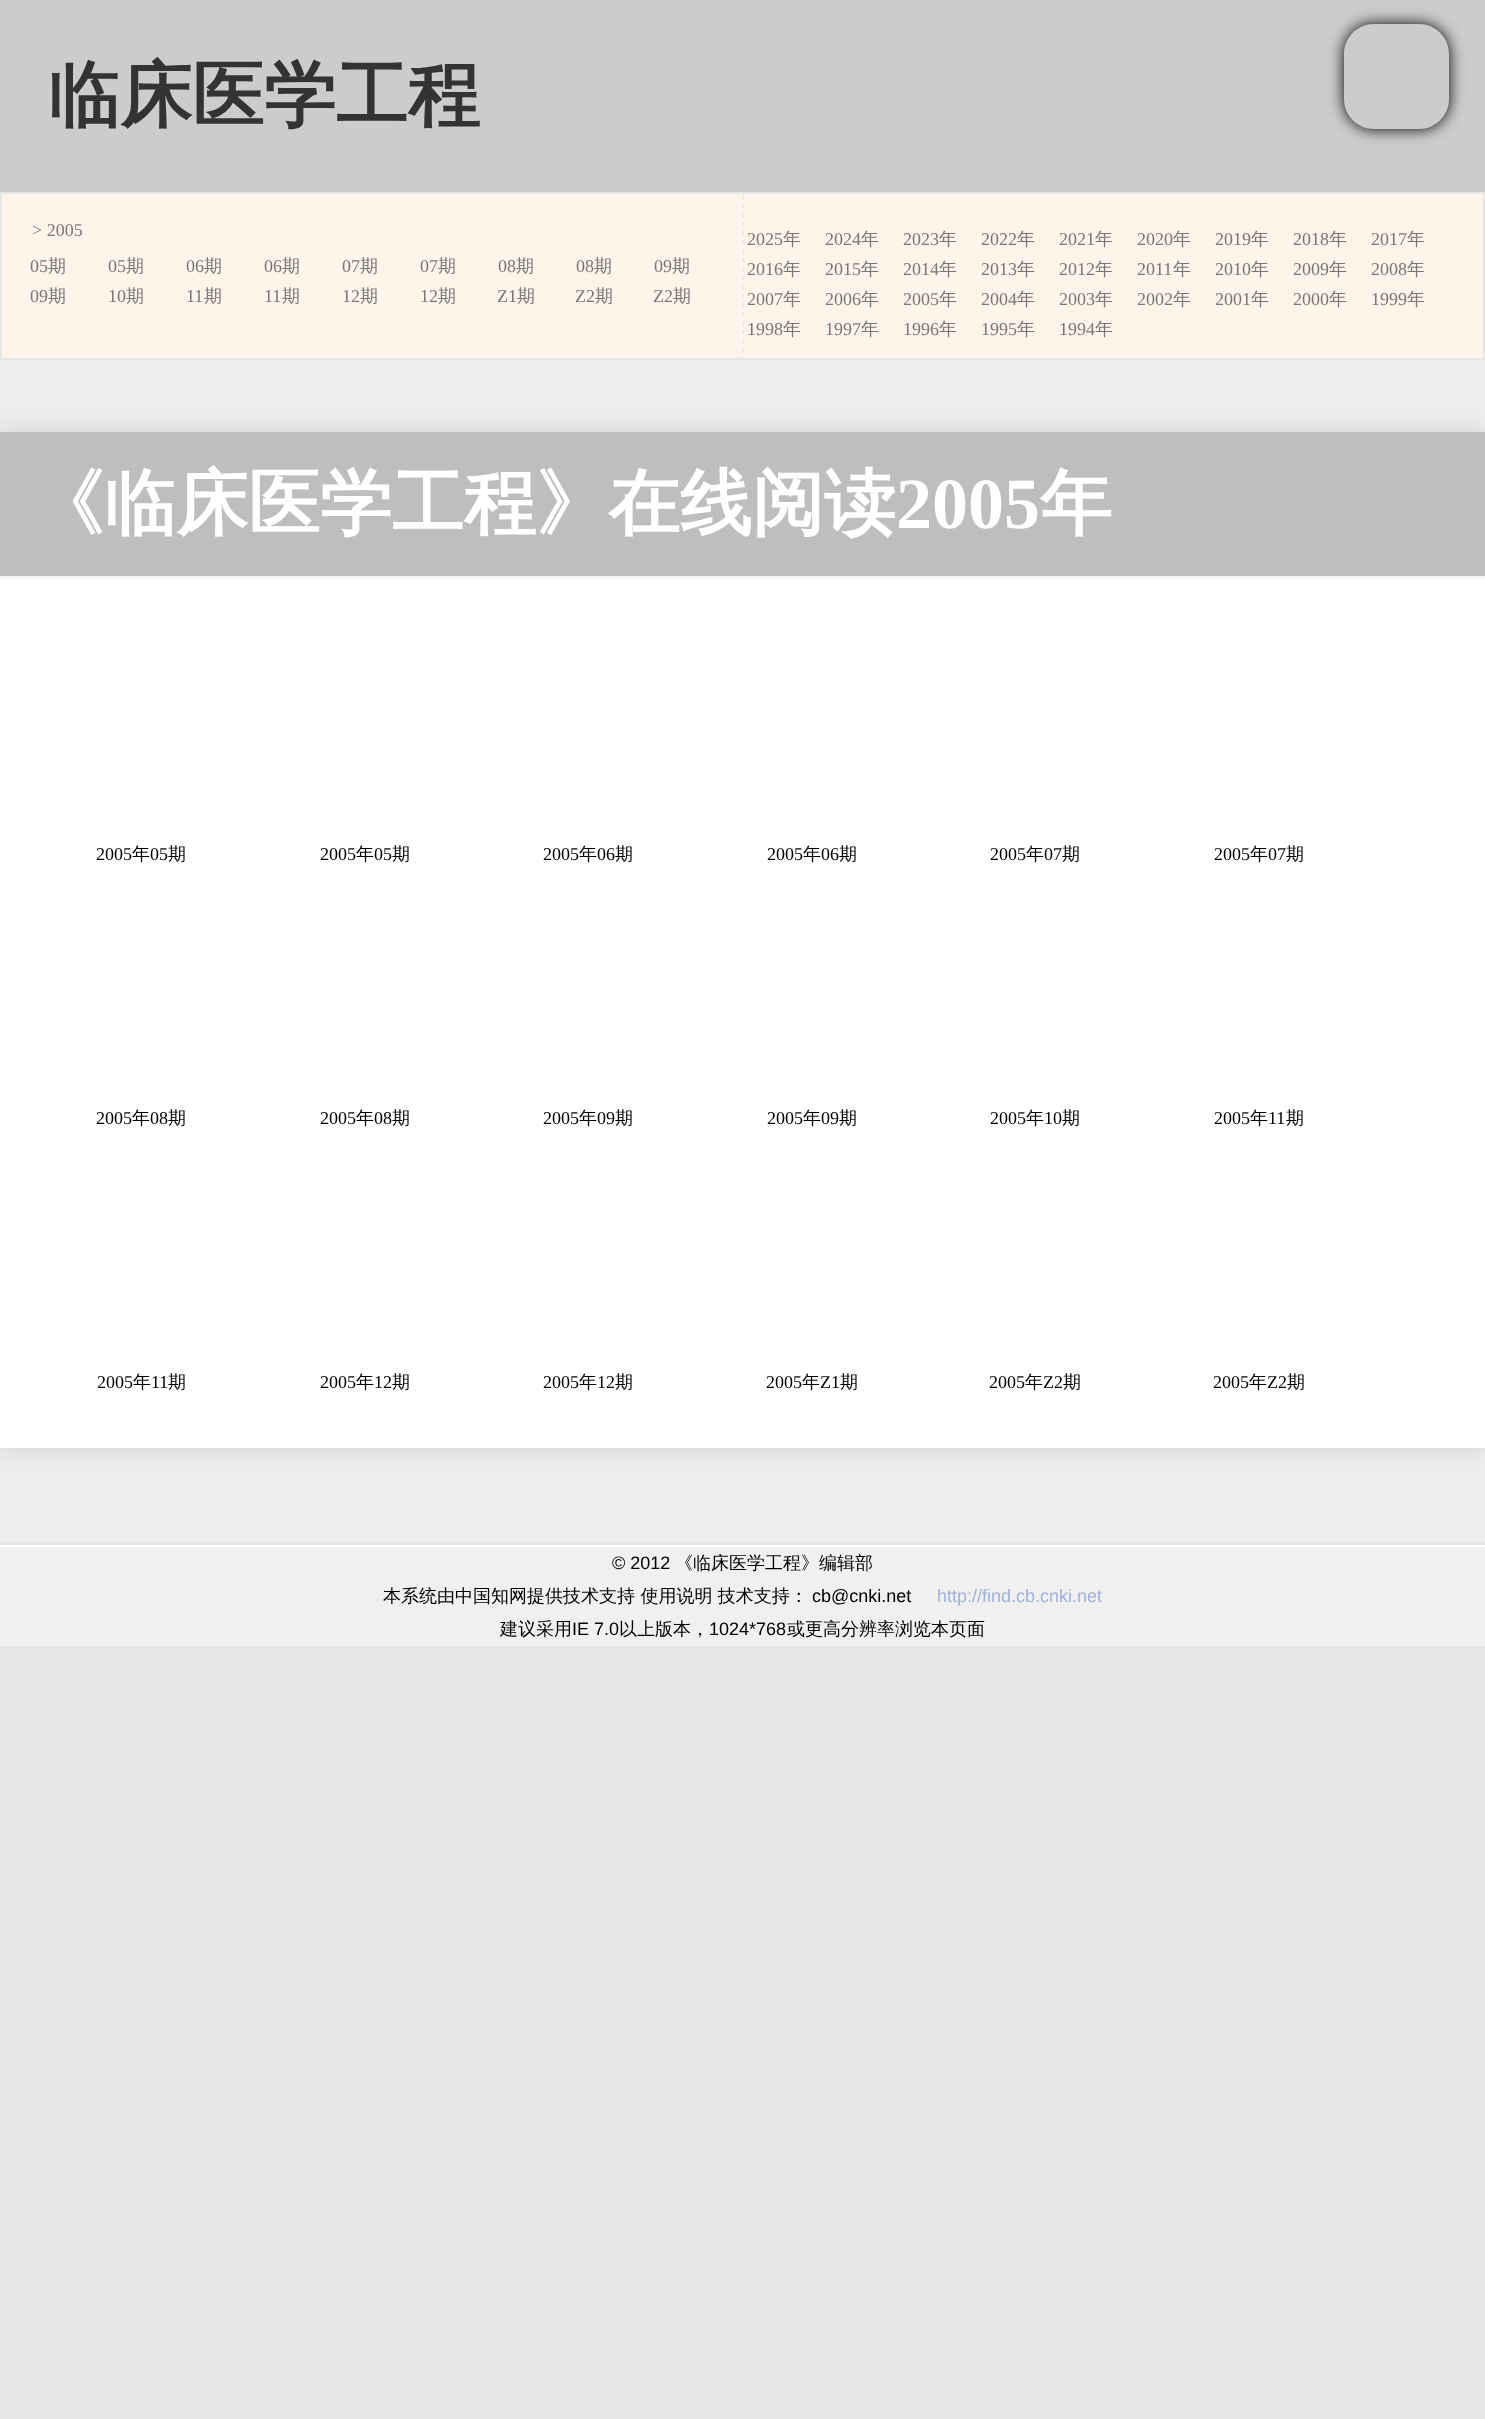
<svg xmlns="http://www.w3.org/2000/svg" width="1485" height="2419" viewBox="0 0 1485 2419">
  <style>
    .t1 { font: bold 72px WenQuanYi Zen Hei; fill: #333; }
    .t2 { font: 18px Liberation Serif; fill: #787777; }
    .t3 { font: 500 18px WenQuanYi Zen Hei; fill: #787777; }
    .t4 { font: bold 72px WenQuanYi Zen Hei; fill: #fff; }
    .t5 { font: bold 72px Liberation Serif; fill: #fff; }
    .t6 { font: 18px Liberation Serif; fill: #000; }
    .t7 { font: 500 18px WenQuanYi Zen Hei; fill: #000; }
    .t8 { font: 18px Liberation Sans; fill: #000; }
    .t9 { font: 18px Liberation Sans; fill: #a0b3d6; }
  </style>
  <defs>
    <clipPath id="clip1"><path d="M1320 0H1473V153H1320ZM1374 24H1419C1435.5 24 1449 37.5 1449 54V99C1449 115.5 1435.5 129 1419 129H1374C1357.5 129 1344 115.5 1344 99V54C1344 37.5 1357.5 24 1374 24Z" clip-rule="evenodd"/></clipPath>
  </defs>
  <rect width="100%" height="100%" fill="#e6e6e6"/>
  <rect x="0" y="0" width="1485" height="192" fill="#ccc"/>
  <text x="48" y="120" class="t1">临床医学工程</text>
  <g clip-path="url(#clip1)">
    <rect x="1344" y="24" width="105" height="105" rx="30" fill="#000" filter="blur(7.5px)"/>
  </g>
  <rect x="0" y="360" width="1485" height="1182" fill="#eee"/>
  <rect x="2" y="194" width="1481" height="164" fill="#fff4e9"/>
  <image x="742" y="194" width="2" height="164" href="images/1.png"/>
  <text x="32" y="236" class="t2">&gt; 2005</text>
  <text x="30" y="272" class="t2">05</text>
  <text x="48" y="272" class="t3">期</text>
  <text x="108" y="272" class="t2">05</text>
  <text x="126" y="272" class="t3">期</text>
  <text x="186" y="272" class="t2">06</text>
  <text x="204" y="272" class="t3">期</text>
  <text x="264" y="272" class="t2">06</text>
  <text x="282" y="272" class="t3">期</text>
  <text x="342" y="272" class="t2">07</text>
  <text x="360" y="272" class="t3">期</text>
  <text x="420" y="272" class="t2">07</text>
  <text x="438" y="272" class="t3">期</text>
  <text x="498" y="272" class="t2">08</text>
  <text x="516" y="272" class="t3">期</text>
  <text x="576" y="272" class="t2">08</text>
  <text x="594" y="272" class="t3">期</text>
  <text x="654" y="272" class="t2">09</text>
  <text x="672" y="272" class="t3">期</text>
  <text x="30" y="302" class="t2">09</text>
  <text x="48" y="302" class="t3">期</text>
  <text x="108" y="302" class="t2">10</text>
  <text x="126" y="302" class="t3">期</text>
  <text x="186" y="302" class="t2">11</text>
  <text x="204" y="302" class="t3">期</text>
  <text x="264" y="302" class="t2">11</text>
  <text x="282" y="302" class="t3">期</text>
  <text x="342" y="302" class="t2">12</text>
  <text x="360" y="302" class="t3">期</text>
  <text x="420" y="302" class="t2">12</text>
  <text x="438" y="302" class="t3">期</text>
  <text x="497" y="302" class="t2">Z1</text>
  <text x="517" y="302" class="t3">期</text>
  <text x="575" y="302" class="t2">Z2</text>
  <text x="595" y="302" class="t3">期</text>
  <text x="653" y="302" class="t2">Z2</text>
  <text x="673" y="302" class="t3">期</text>
  <text x="747" y="245" class="t2">2025</text>
  <text x="783" y="245" class="t3">年</text>
  <text x="825" y="245" class="t2">2024</text>
  <text x="861" y="245" class="t3">年</text>
  <text x="903" y="245" class="t2">2023</text>
  <text x="939" y="245" class="t3">年</text>
  <text x="981" y="245" class="t2">2022</text>
  <text x="1017" y="245" class="t3">年</text>
  <text x="1059" y="245" class="t2">2021</text>
  <text x="1095" y="245" class="t3">年</text>
  <text x="1137" y="245" class="t2">2020</text>
  <text x="1173" y="245" class="t3">年</text>
  <text x="1215" y="245" class="t2">2019</text>
  <text x="1251" y="245" class="t3">年</text>
  <text x="1293" y="245" class="t2">2018</text>
  <text x="1329" y="245" class="t3">年</text>
  <text x="1371" y="245" class="t2">2017</text>
  <text x="1407" y="245" class="t3">年</text>
  <text x="747" y="275" class="t2">2016</text>
  <text x="783" y="275" class="t3">年</text>
  <text x="825" y="275" class="t2">2015</text>
  <text x="861" y="275" class="t3">年</text>
  <text x="903" y="275" class="t2">2014</text>
  <text x="939" y="275" class="t3">年</text>
  <text x="981" y="275" class="t2">2013</text>
  <text x="1017" y="275" class="t3">年</text>
  <text x="1059" y="275" class="t2">2012</text>
  <text x="1095" y="275" class="t3">年</text>
  <text x="1137" y="275" class="t2">2011</text>
  <text x="1173" y="275" class="t3">年</text>
  <text x="1215" y="275" class="t2">2010</text>
  <text x="1251" y="275" class="t3">年</text>
  <text x="1293" y="275" class="t2">2009</text>
  <text x="1329" y="275" class="t3">年</text>
  <text x="1371" y="275" class="t2">2008</text>
  <text x="1407" y="275" class="t3">年</text>
  <text x="747" y="305" class="t2">2007</text>
  <text x="783" y="305" class="t3">年</text>
  <text x="825" y="305" class="t2">2006</text>
  <text x="861" y="305" class="t3">年</text>
  <text x="903" y="305" class="t2">2005</text>
  <text x="939" y="305" class="t3">年</text>
  <text x="981" y="305" class="t2">2004</text>
  <text x="1017" y="305" class="t3">年</text>
  <text x="1059" y="305" class="t2">2003</text>
  <text x="1095" y="305" class="t3">年</text>
  <text x="1137" y="305" class="t2">2002</text>
  <text x="1173" y="305" class="t3">年</text>
  <text x="1215" y="305" class="t2">2001</text>
  <text x="1251" y="305" class="t3">年</text>
  <text x="1293" y="305" class="t2">2000</text>
  <text x="1329" y="305" class="t3">年</text>
  <text x="1371" y="305" class="t2">1999</text>
  <text x="1407" y="305" class="t3">年</text>
  <text x="747" y="335" class="t2">1998</text>
  <text x="783" y="335" class="t3">年</text>
  <text x="825" y="335" class="t2">1997</text>
  <text x="861" y="335" class="t3">年</text>
  <text x="903" y="335" class="t2">1996</text>
  <text x="939" y="335" class="t3">年</text>
  <text x="981" y="335" class="t2">1995</text>
  <text x="1017" y="335" class="t3">年</text>
  <text x="1059" y="335" class="t2">1994</text>
  <text x="1095" y="335" class="t3">年</text>
  <rect x="0" y="432" width="1485" height="1016" fill="#ccc" filter="blur(12px)"/>
  <rect x="0" y="579" width="1485" height="869" fill="#fff"/>
  <rect x="0" y="432" width="1485" height="144" fill="#bebebe"/>
  <rect x="0" y="576" width="1485" height="3" fill="#f5f5f5"/>
  <text x="32" y="528" class="t4">《临床医学工程》在线阅读</text>
  <text x="896" y="528" class="t5">2005</text>
  <text x="1040" y="528" class="t4">年</text>
  <text x="96" y="860" class="t6">2005</text>
  <text x="132" y="860" class="t7">年</text>
  <text x="150" y="860" class="t6">05</text>
  <text x="168" y="860" class="t7">期</text>
  <text x="320" y="860" class="t6">2005</text>
  <text x="356" y="860" class="t7">年</text>
  <text x="374" y="860" class="t6">05</text>
  <text x="392" y="860" class="t7">期</text>
  <text x="543" y="860" class="t6">2005</text>
  <text x="579" y="860" class="t7">年</text>
  <text x="597" y="860" class="t6">06</text>
  <text x="615" y="860" class="t7">期</text>
  <text x="767" y="860" class="t6">2005</text>
  <text x="803" y="860" class="t7">年</text>
  <text x="821" y="860" class="t6">06</text>
  <text x="839" y="860" class="t7">期</text>
  <text x="990" y="860" class="t6">2005</text>
  <text x="1026" y="860" class="t7">年</text>
  <text x="1044" y="860" class="t6">07</text>
  <text x="1062" y="860" class="t7">期</text>
  <text x="1214" y="860" class="t6">2005</text>
  <text x="1250" y="860" class="t7">年</text>
  <text x="1268" y="860" class="t6">07</text>
  <text x="1286" y="860" class="t7">期</text>
  <text x="96" y="1124" class="t6">2005</text>
  <text x="132" y="1124" class="t7">年</text>
  <text x="150" y="1124" class="t6">08</text>
  <text x="168" y="1124" class="t7">期</text>
  <text x="320" y="1124" class="t6">2005</text>
  <text x="356" y="1124" class="t7">年</text>
  <text x="374" y="1124" class="t6">08</text>
  <text x="392" y="1124" class="t7">期</text>
  <text x="543" y="1124" class="t6">2005</text>
  <text x="579" y="1124" class="t7">年</text>
  <text x="597" y="1124" class="t6">09</text>
  <text x="615" y="1124" class="t7">期</text>
  <text x="767" y="1124" class="t6">2005</text>
  <text x="803" y="1124" class="t7">年</text>
  <text x="821" y="1124" class="t6">09</text>
  <text x="839" y="1124" class="t7">期</text>
  <text x="990" y="1124" class="t6">2005</text>
  <text x="1026" y="1124" class="t7">年</text>
  <text x="1044" y="1124" class="t6">10</text>
  <text x="1062" y="1124" class="t7">期</text>
  <text x="1214" y="1124" class="t6">2005</text>
  <text x="1250" y="1124" class="t7">年</text>
  <text x="1268" y="1124" class="t6">11</text>
  <text x="1286" y="1124" class="t7">期</text>
  <text x="97" y="1388" class="t6">2005</text>
  <text x="133" y="1388" class="t7">年</text>
  <text x="151" y="1388" class="t6">11</text>
  <text x="168" y="1388" class="t7">期</text>
  <text x="320" y="1388" class="t6">2005</text>
  <text x="356" y="1388" class="t7">年</text>
  <text x="374" y="1388" class="t6">12</text>
  <text x="392" y="1388" class="t7">期</text>
  <text x="543" y="1388" class="t6">2005</text>
  <text x="579" y="1388" class="t7">年</text>
  <text x="597" y="1388" class="t6">12</text>
  <text x="615" y="1388" class="t7">期</text>
  <text x="766" y="1388" class="t6">2005</text>
  <text x="802" y="1388" class="t7">年</text>
  <text x="820" y="1388" class="t6">Z1</text>
  <text x="840" y="1388" class="t7">期</text>
  <text x="989" y="1388" class="t6">2005</text>
  <text x="1025" y="1388" class="t7">年</text>
  <text x="1043" y="1388" class="t6">Z2</text>
  <text x="1063" y="1388" class="t7">期</text>
  <text x="1213" y="1388" class="t6">2005</text>
  <text x="1249" y="1388" class="t7">年</text>
  <text x="1267" y="1388" class="t6">Z2</text>
  <text x="1287" y="1388" class="t7">期</text>
  <rect x="0" y="1547" width="1485" height="99" fill="#f0f0f0"/>
  <rect x="0" y="1545" width="1485" height="2" fill="#fff"/>
  <text x="612" y="1569" class="t8">© 2012</text>
  <text x="675" y="1569" class="t7">《临床医学工程》编辑部</text>
  <text x="383" y="1602" class="t7">本系统由中国知网提供技术支持 使用说明 技术支持：</text>
  <text x="812" y="1602" class="t8">cb@cnki.net</text>
  <text x="937" y="1602" class="t9">http://find.cb.cnki.net</text>
  <text x="500" y="1635" class="t7">建议采用</text>
  <text x="572" y="1635" class="t8">IE 7.0</text>
  <text x="619" y="1635" class="t7">以上版本，</text>
  <text x="709" y="1635" class="t8">1024*768</text>
  <text x="787" y="1635" class="t7">或更高分辨率浏览本页面</text>
</svg>
